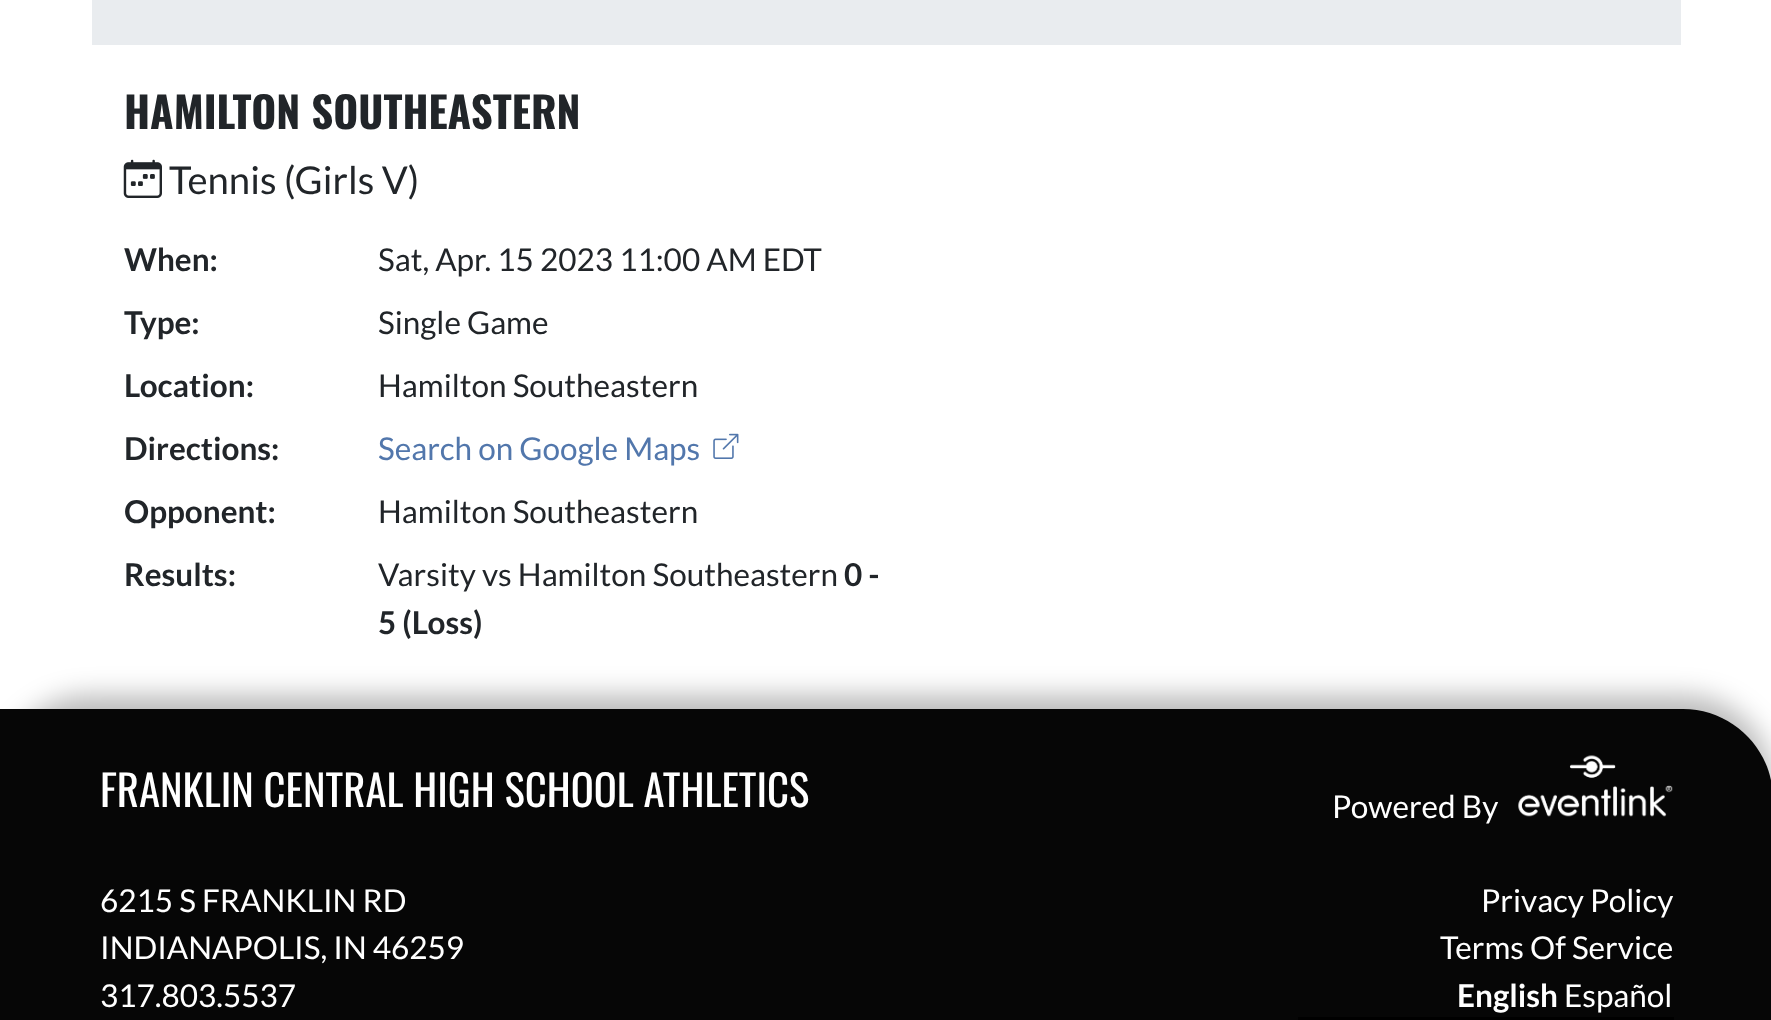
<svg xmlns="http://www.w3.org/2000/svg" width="1771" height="1020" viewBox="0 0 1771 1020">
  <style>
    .t1 { font: bold 42.75px Oswald; fill: #212529; }
    .t2 { font: 38.25px Lato; fill: #212529; }
    .t3 { font: bold 31.5px Lato; fill: #212529; }
    .t4 { font: 31.5px Lato; fill: #212529; }
    .t5 { font: 31.5px Lato; fill: #5277ac; }
    .t6 { font: 42.75px Oswald; fill: #fff; }
    .t7 { font: 31.5px Lato; fill: #fff; }
    .t8 { font: bold 31.5px Lato; fill: #fff; }
  </style>
  <rect width="100%" height="100%" fill="#fff"/>
  <rect x="92" y="0" width="1589" height="45" fill="#e9ecef"/>
  <text x="124" y="129" class="t1">HAMILTON SOUTHEASTERN</text>
  <image x="123" y="159" width="39" height="39" href="images/1.png"/>
  <text x="169" y="194" class="t2">Tennis (Girls V)</text>
  <text x="124" y="271" class="t3">When:</text>
  <text x="378" y="271" class="t4">Sat, Apr. 15 2023 11:00 AM EDT</text>
  <text x="124" y="334" class="t3">Type:</text>
  <text x="378" y="334" class="t4">Single Game</text>
  <text x="124" y="397" class="t3">Location:</text>
  <text x="378" y="397" class="t4">Hamilton Southeastern</text>
  <text x="124" y="460" class="t3">Directions:</text>
  <text x="378" y="460" class="t5">Search on Google Maps</text>
  <image x="713" y="433" width="26" height="26" href="images/2.png"/>
  <text x="124" y="523" class="t3">Opponent:</text>
  <text x="378" y="523" class="t4">Hamilton Southeastern</text>
  <text x="124" y="586" class="t3">Results:</text>
  <text x="378" y="586" class="t4">Varsity vs Hamilton Southeastern</text>
  <text x="844" y="586" class="t3">0 -</text>
  <text x="378" y="634" class="t3">5 (Loss)</text>
  <rect x="0" y="695" width="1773" height="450" rx="90" fill="#00000045" filter="blur(13.5px)"/>
  <path d="M0 709H1683C1732.5 709 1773 749.5 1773 799V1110H0Z" fill="#060606"/>
  <text x="100" y="807" class="t6">FRANKLIN CENTRAL HIGH SCHOOL ATHLETICS</text>
  <text x="1332" y="818" class="t7">Powered By</text>
  <image x="1518" y="755" width="155" height="62" href="images/3.png"/>
  <text x="100" y="912" class="t7">6215 S FRANKLIN RD</text>
  <text x="100" y="959" class="t7">INDIANAPOLIS, IN 46259</text>
  <text x="100" y="1007" class="t7">317.803.5537</text>
  <text x="1481" y="912" class="t7">Privacy Policy</text>
  <text x="1440" y="959" class="t7">Terms Of Service</text>
  <text x="1457" y="1007" class="t8">English</text>
  <text x="1564" y="1007" class="t7">Español</text>
  <rect x="1298" y="1017" width="376" height="3" fill="#000"/>
</svg>
